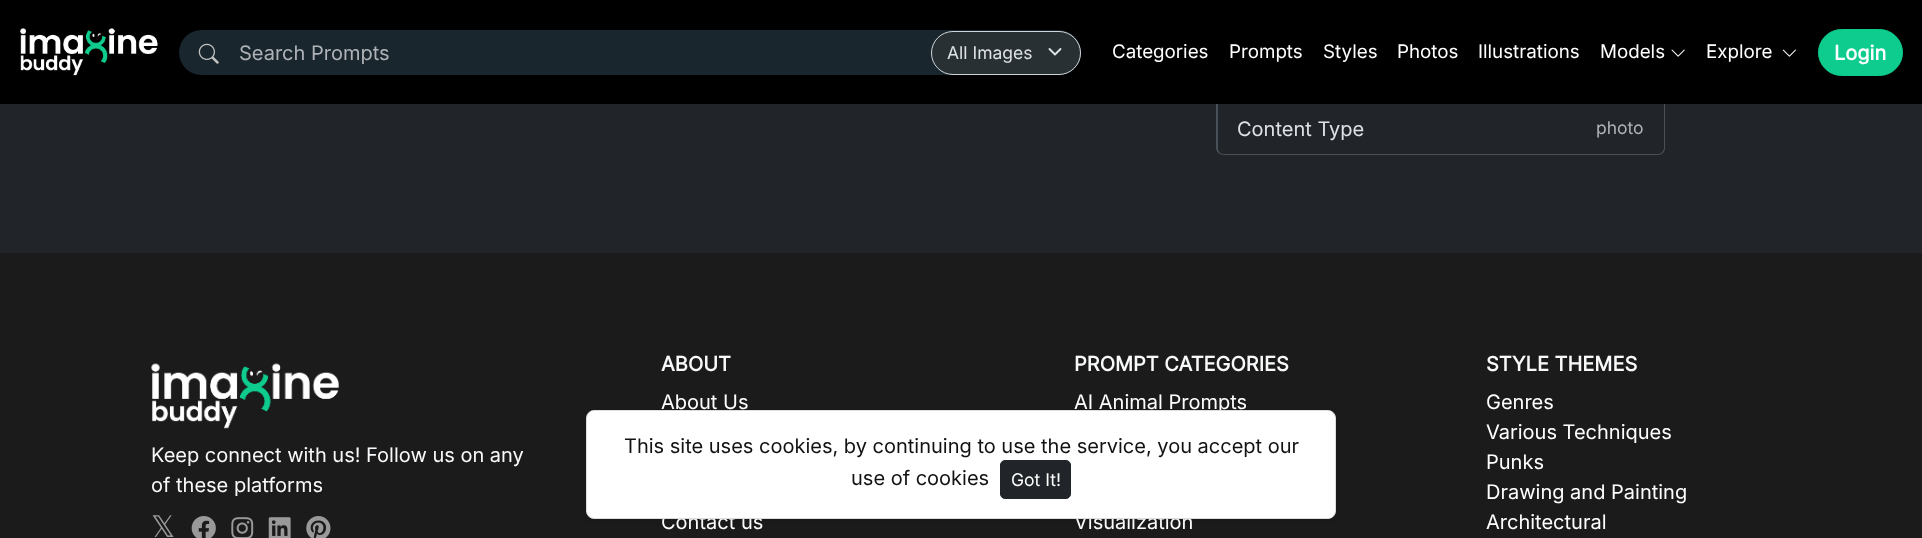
<svg xmlns="http://www.w3.org/2000/svg" width="1922" height="538" viewBox="0 0 1922 538">
  <style>
    .t1 { font: 20px Inter; fill: #afb3b7; }
    .t2 { font: 17.5px Inter; fill: #dee2e6; }
    .t3 { font: 18.75px Inter; fill: #fff; }
    .t4 { font: bold 20px Inter; fill: #fff; }
    .t5 { font: 20px Inter; fill: #dee2e6; }
    .t6 { font: 17.5px Inter; fill: #afb3b7; }
    .t7 { font: 20px Inter; fill: #f8f9fa; }
    .t8 { font: 30px DejaVu Sans; fill: #999; }
    .t9 { font: bold 20px Inter; fill: #f8f9fa; }
    .t10 { font: 20px Inter; fill: #fff; }
    .t11 { font: 20px Inter; fill: #121212; }
    .t12 { font: 17.5px Inter; fill: #fff; }
  </style>
  <rect width="100%" height="100%" fill="#212529"/>
  <rect x="0" y="0" width="1922" height="104" fill="#000"/>
  <image x="20" y="28" width="138" height="48" href="images/1.png"/>
  <rect x="179" y="30" width="902" height="45" rx="22.5" fill="#19262d"/>
  <image x="198" y="43" width="21" height="21" href="images/2.png"/>
  <text x="239" y="60" class="t1">Search Prompts</text>
  <rect x="931" y="31" width="150" height="44" rx="22" fill="#283033"/>
  <path d="M1049.5 49L1055 54.5L1060.5 49" fill="none" stroke="#dee2e6" stroke-width="1.9" stroke-linecap="round" stroke-linejoin="round"/>
  <rect x="931.5" y="31.5" width="149" height="43" rx="21.5" fill="none" stroke="#ced4da"/>
  <text x="947" y="59" class="t2">All Images</text>
  <text x="1112" y="58" class="t3">Categories</text>
  <text x="1229" y="58" class="t3">Prompts</text>
  <text x="1323" y="58" class="t3">Styles</text>
  <text x="1397" y="58" class="t3">Photos</text>
  <text x="1478" y="58" class="t3">Illustrations</text>
  <text x="1600" y="58" class="t3">Models</text>
  <image x="1671" y="49" width="14" height="8" href="images/3.png"/>
  <text x="1706" y="58" class="t3">Explore</text>
  <image x="1782" y="49" width="14" height="8" href="images/4.png"/>
  <rect x="1818.5" y="29.5" width="84" height="46" rx="23" fill="#0ecc8d" stroke="#0ecc8d"/>
  <text x="1834" y="60" class="t4">Login</text>
  <path d="M1216 104H1665V148C1665 152 1662 155 1658 155H1224C1220 155 1216 152 1216 148ZM1218 104H1664V148C1664 151 1661 154 1658 154H1224C1220 154 1218 151 1218 148Z" fill="#495057" fill-rule="evenodd"/>
  <text x="1237" y="136" class="t5">Content Type</text>
  <text x="1596" y="134" class="t6">photo</text>
  <rect x="0" y="253" width="1922" height="285" fill="#1b1b1b"/>
  <image x="151" y="363" width="188" height="66" href="images/5.png"/>
  <text x="151" y="462" class="t7">Keep connect with us! Follow us on any</text>
  <text x="151" y="492" class="t7">of these platforms</text>
  <text x="151" y="537" class="t8">𝕏</text>
  <image x="191" y="516" width="25" height="22" href="images/6.png"/>
  <image x="231" y="517" width="23" height="21" href="images/7.png"/>
  <image x="268" y="517" width="23" height="21" href="images/8.png"/>
  <image x="306" y="516" width="25" height="22" href="images/9.png"/>
  <text x="661" y="371" class="t9">ABOUT</text>
  <text x="661" y="409" class="t10">About Us</text>
  <text x="661" y="529" class="t10">Contact us</text>
  <text x="1074" y="371" class="t9">PROMPT CATEGORIES</text>
  <text x="1074" y="409" class="t10">AI Animal Prompts</text>
  <text x="1074" y="529" class="t10">Visualization</text>
  <text x="1486" y="371" class="t9">STYLE THEMES</text>
  <text x="1486" y="409" class="t10">Genres</text>
  <text x="1486" y="439" class="t10">Various Techniques</text>
  <text x="1486" y="469" class="t10">Punks</text>
  <text x="1486" y="499" class="t10">Drawing and Painting</text>
  <text x="1486" y="529" class="t10">Architectural</text>
  <rect x="586" y="413" width="750" height="108" rx="8" fill="#00000012" filter="blur(2.5px)"/>
  <rect x="586.5" y="410.5" width="749" height="108" rx="7.5" fill="#fff" stroke="#ddd"/>
  <text x="624" y="453" class="t11">This site uses cookies, by continuing to use the service, you accept our</text>
  <text x="851" y="485" class="t11">use of cookies</text>
  <rect x="1000.5" y="460.5" width="70" height="38" rx="4.5" fill="#212529" stroke="#212529"/>
  <text x="1011" y="486" class="t12">Got It!</text>
</svg>
